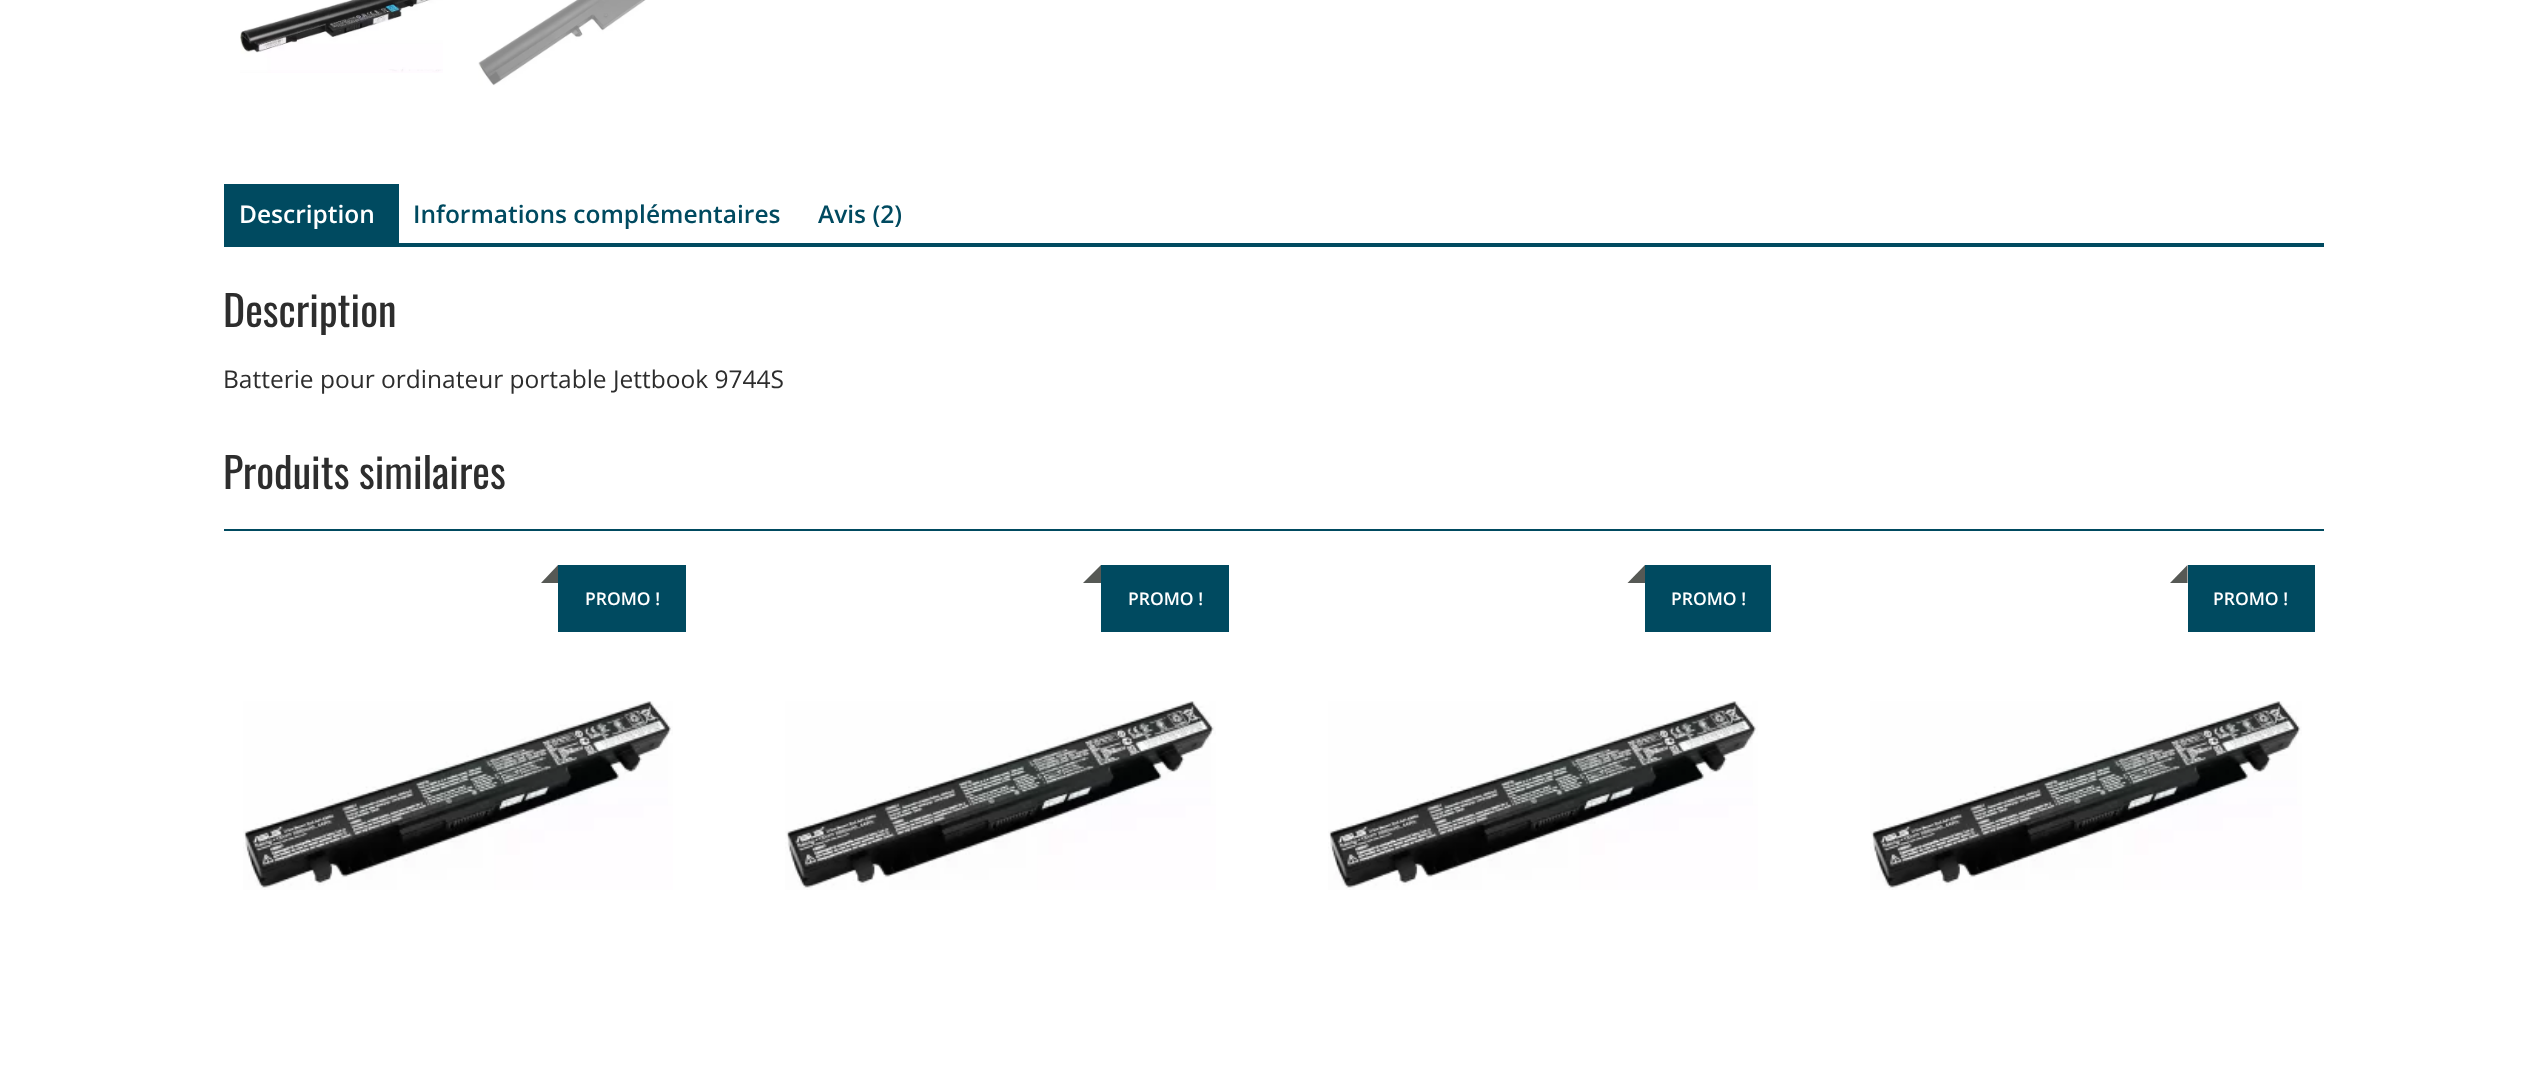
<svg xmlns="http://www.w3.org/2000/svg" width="2545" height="1091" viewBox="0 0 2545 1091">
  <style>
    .t1 { font: 600 24.5px Open Sans; fill: #fff; }
    .t2 { font: 600 24.5px Open Sans; fill: #004a60; }
    .t3 { font: 42px Oswald; fill: #2d2d2d; }
    .t4 { font: 24.5px Open Sans; fill: #2d2d2d; }
    .t5 { font: 600 17.5px Open Sans; fill: #fff; }
  </style>
  <rect width="100%" height="100%" fill="#fff"/>
  <image x="240" y="0" width="203" height="73" href="images/1.png"/>
  <image x="478" y="0" width="168" height="86" href="images/2.png"/>
  <rect x="224" y="184" width="175" height="63" fill="#004a60"/>
  <text x="239" y="223" class="t1">Description</text>
  <text x="413" y="223" class="t2">Informations complémentaires</text>
  <text x="818" y="223" class="t2">Avis (2)</text>
  <rect x="399" y="243" width="1925" height="4" fill="#004a60"/>
  <text x="223" y="327" class="t3">Description</text>
  <text x="223" y="388" class="t4">Batterie pour ordinateur portable Jettbook 9744S</text>
  <rect x="224" y="529" width="2100" height="2" fill="#004a60"/>
  <text x="223" y="489" class="t3">Produits similaires</text>
  <rect x="558" y="565" width="128" height="67" fill="#004a60"/>
  <path d="M558 565V583H541Z" fill="#565955"/>
  <text x="585" y="605" class="t5">PROMO !</text>
  <image x="243" y="701" width="430" height="189" href="images/3.png"/>
  <rect x="1101" y="565" width="128" height="67" fill="#004a60"/>
  <path d="M1101 565V583H1083Z" fill="#565955"/>
  <text x="1128" y="605" class="t5">PROMO !</text>
  <image x="785" y="701" width="431" height="189" href="images/4.png"/>
  <rect x="1645" y="565" width="126" height="67" fill="#004a60"/>
  <path d="M1645 565V583H1627.5Z" fill="#565955"/>
  <text x="1671" y="605" class="t5">PROMO !</text>
  <image x="1328" y="701" width="430" height="189" href="images/5.png"/>
  <rect x="2188" y="565" width="127" height="67" fill="#004a60"/>
  <path d="M2187.5 565V583H2170Z" fill="#565955"/>
  <text x="2213" y="605" class="t5">PROMO !</text>
  <image x="1870" y="701" width="432" height="189" href="images/6.png"/>
</svg>
